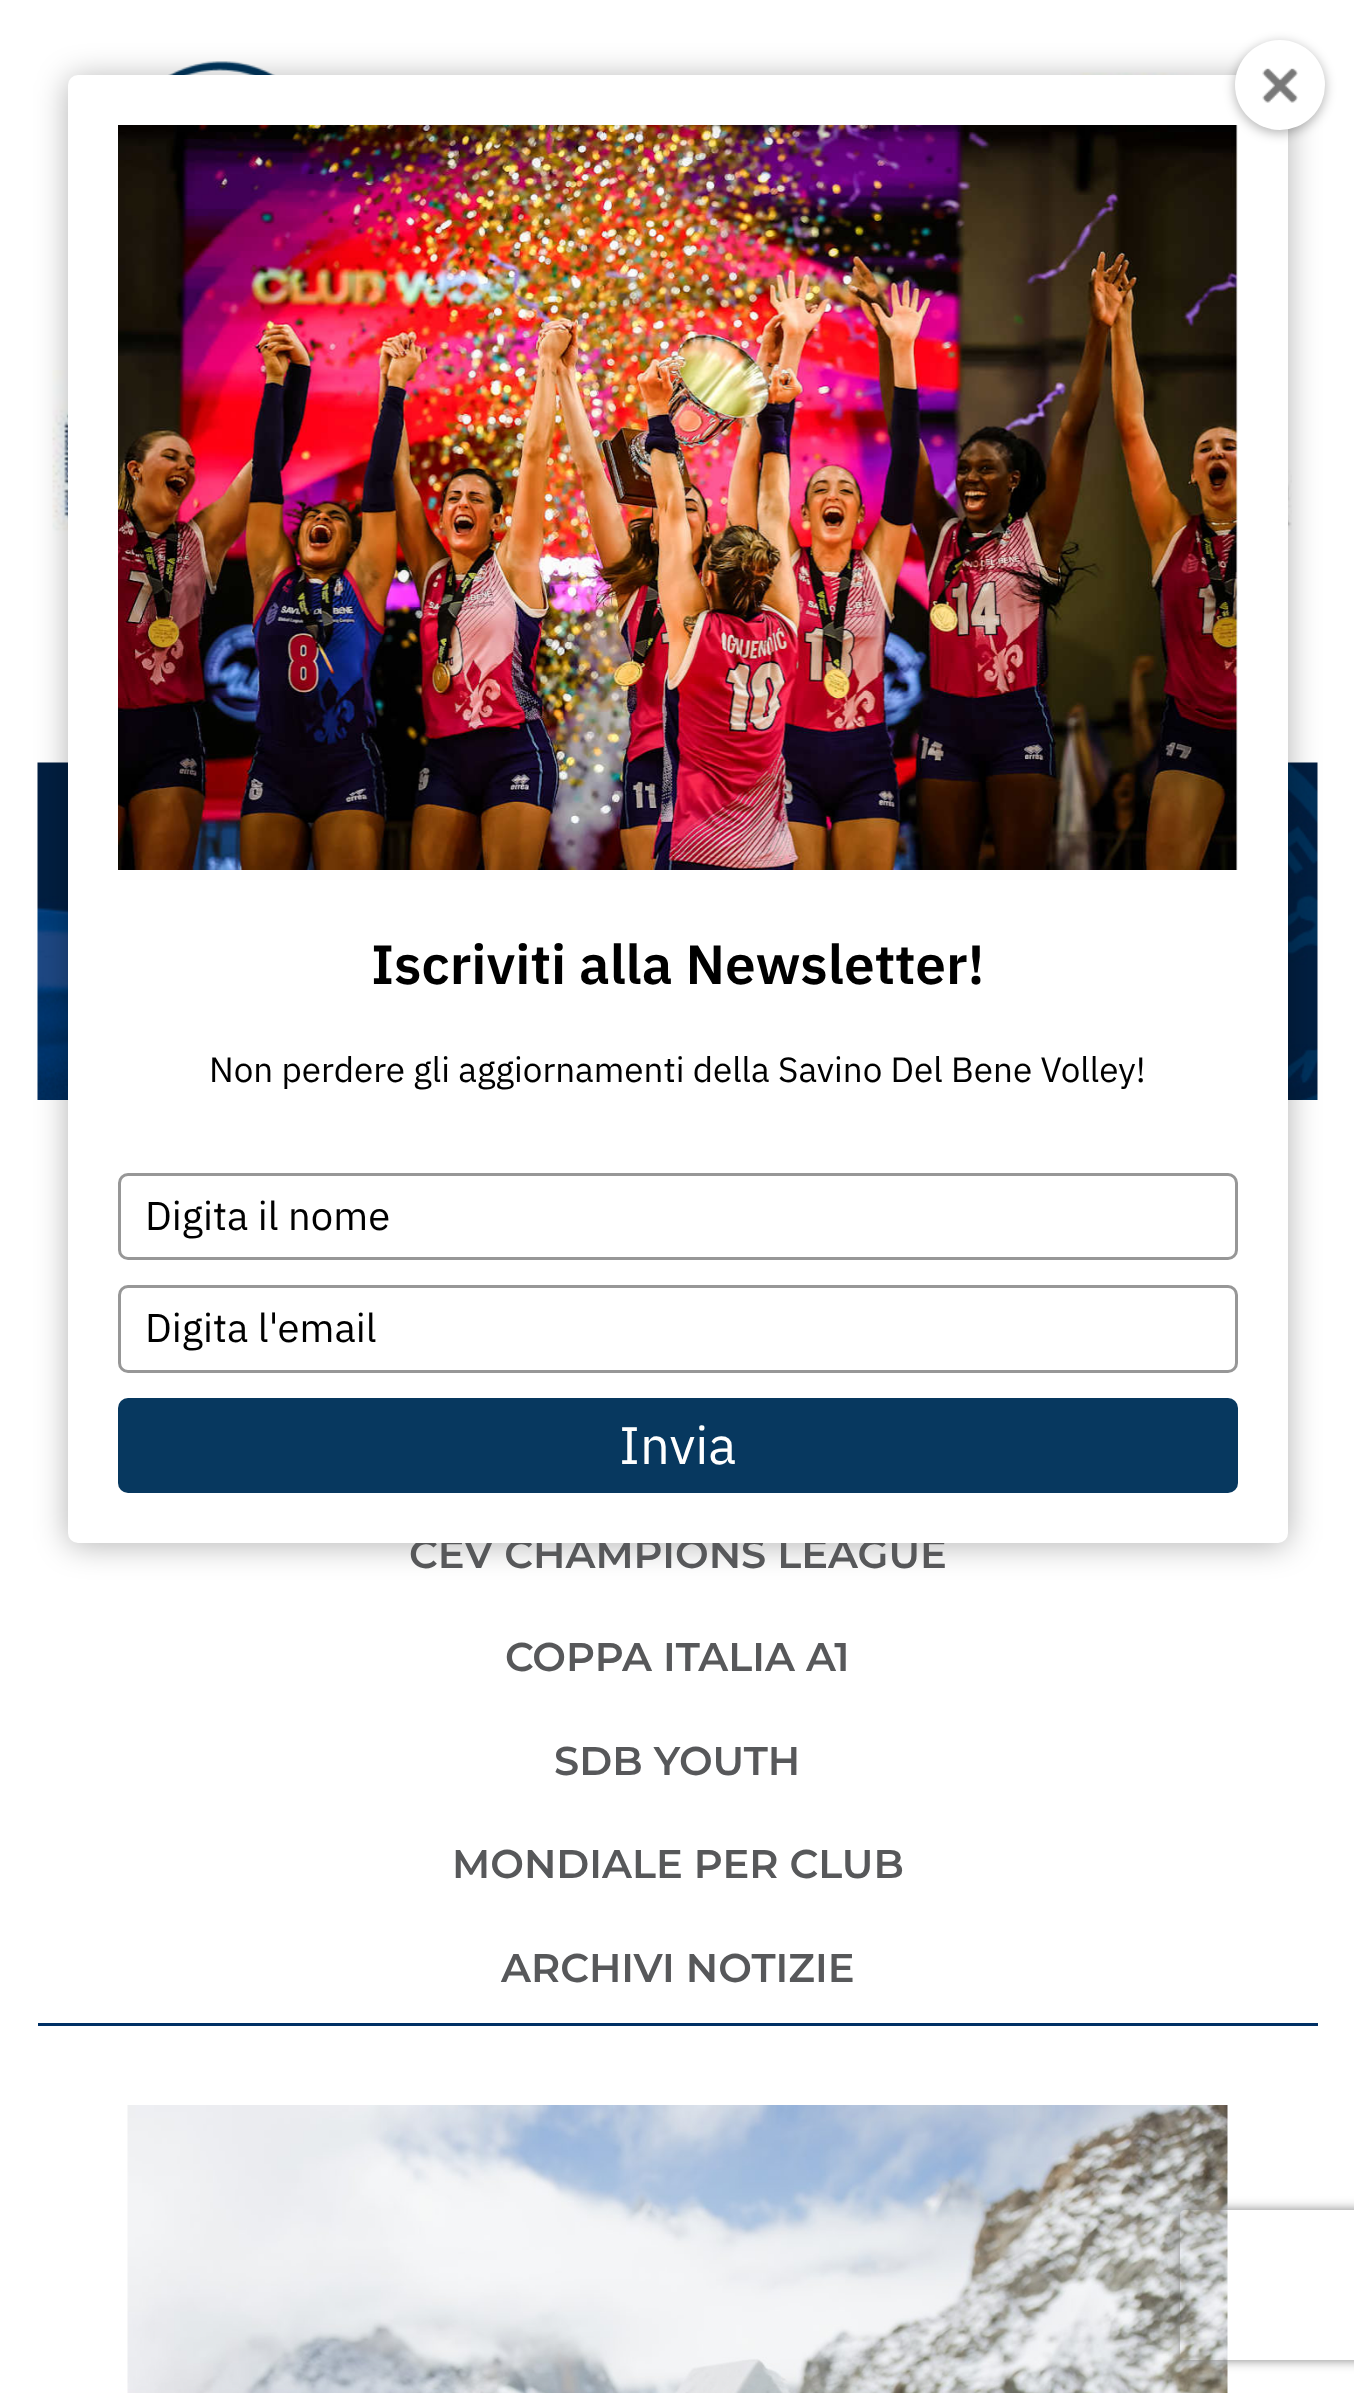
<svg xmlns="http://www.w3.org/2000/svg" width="1354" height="2393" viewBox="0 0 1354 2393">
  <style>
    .t1 { font: 600 40px Montserrat; fill: #57585a; }
    .t2 { font: 600 55px IBM Plex Sans; fill: #000; }
    .t3 { font: 35px IBM Plex Sans; fill: #000; }
    .t4 { font: 40px IBM Plex Sans; fill: #000; }
    .t5 { font: 52.5px IBM Plex Sans; fill: #fff; }
  </style>
  <defs>
    <clipPath id="clip1"><path d="M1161 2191H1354V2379H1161ZM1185 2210H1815C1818 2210 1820 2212 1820 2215V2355C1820 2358 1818 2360 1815 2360H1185C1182 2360 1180 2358 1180 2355V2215C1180 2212 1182 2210 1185 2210Z" clip-rule="evenodd"/></clipPath>
  </defs>
  <rect width="100%" height="100%" fill="#fff"/>
  <image x="168" y="61" width="108" height="14" href="images/3.png"/>
  <image x="1069" y="72" width="125" height="3" href="images/4.png"/>
  <image x="52" y="370" width="1240" height="195" href="images/5.png"/>
  <image x="37" y="762" width="1281" height="338" href="images/6.png"/>
  <rect x="68" y="78" width="1220" height="1467" rx="10" fill="#0000004d" filter="blur(16px)"/>
  <text x="409" y="1568" class="t1">CEV CHAMPIONS LEAGUE</text>
  <rect x="68" y="75" width="1220" height="1468" rx="10" fill="#fff"/>
  <image x="118" y="125" width="1120" height="745" href="images/2.png"/>
  <rect x="1235" y="43" width="90" height="90" rx="45" fill="#0000004d" filter="blur(6px)"/>
  <circle cx="1280" cy="85" r="45" fill="#fff"/>
  <image x="1262" y="68" width="36" height="35" href="images/1.png"/>
  <text x="371" y="984" class="t2">Iscriviti alla Newsletter!</text>
  <text x="209" y="1082" class="t3">Non perdere gli aggiornamenti della Savino Del Bene Volley!</text>
  <rect x="119.5" y="1174.5" width="1117" height="84" rx="8.5" fill="none" stroke="#979797" stroke-width="3"/>
  <text x="145" y="1230" class="t4">Digita il nome</text>
  <rect x="119.5" y="1286.5" width="1117" height="85" rx="8.5" fill="none" stroke="#979797" stroke-width="3"/>
  <text x="145" y="1342" class="t4">Digita l'email</text>
  <rect x="118" y="1398" width="1120" height="95" rx="10" fill="#07385f"/>
  <text x="619" y="1464" class="t5">Invia</text>
  <rect x="38" y="2023" width="1280" height="3" fill="#003065"/>
  <text x="505" y="1671" class="t1">COPPA ITALIA A1</text>
  <text x="554" y="1775" class="t1">SDB YOUTH</text>
  <text x="452" y="1878" class="t1">MONDIALE PER CLUB</text>
  <text x="501" y="1982" class="t1">ARCHIVI NOTIZIE</text>
  <image x="127" y="2105" width="1101" height="288" href="images/7.png"/>
  <g clip-path="url(#clip1)">
    <rect x="1180" y="2210" width="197" height="150" rx="5" fill="#808080" filter="blur(6px)"/>
  </g>
</svg>
